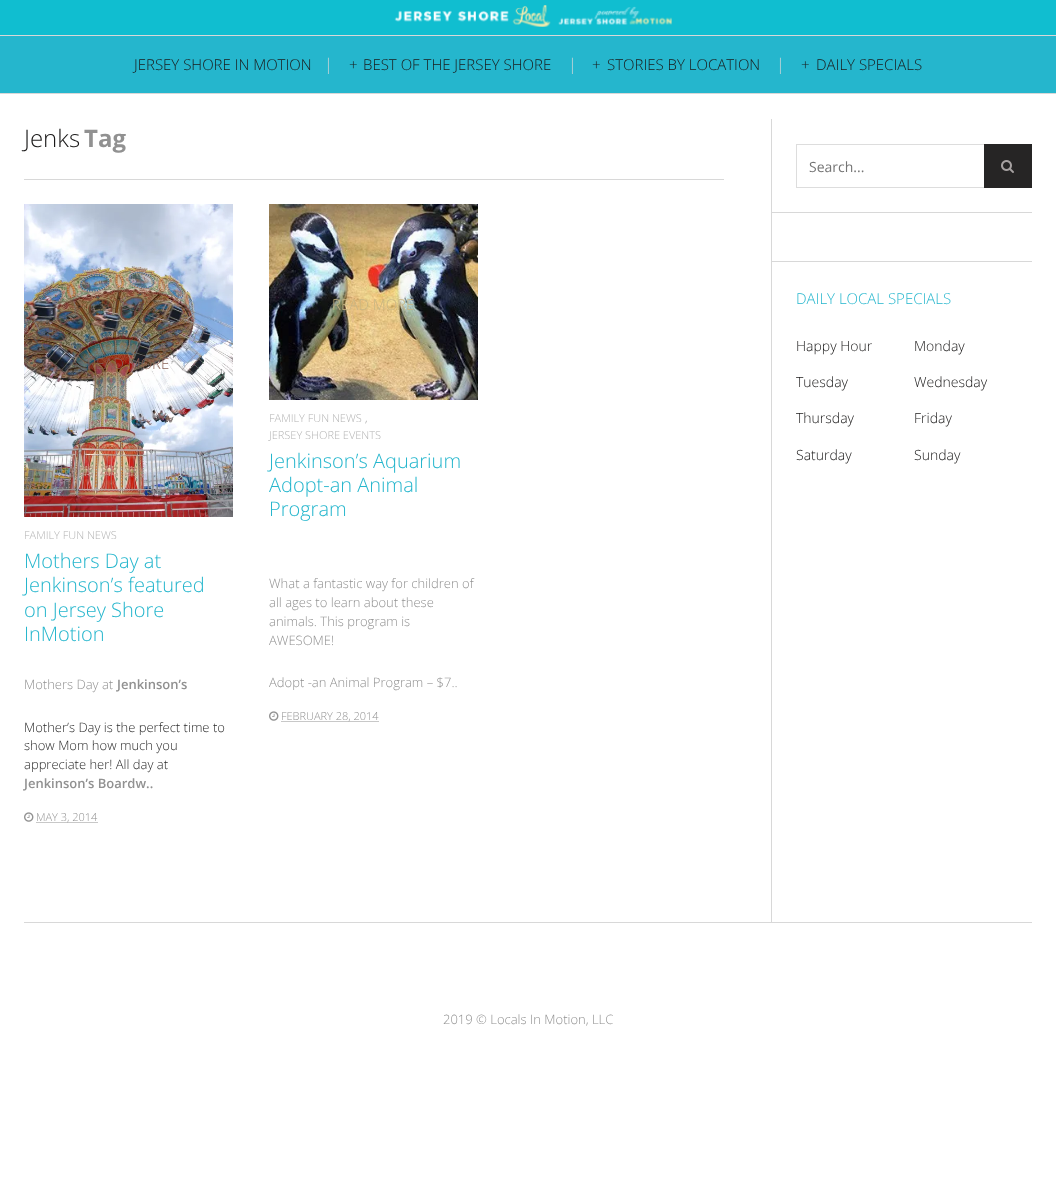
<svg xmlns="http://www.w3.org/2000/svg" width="1056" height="1188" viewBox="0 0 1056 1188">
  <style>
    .t1 { font: 300 15px Open Sans; fill: #1a1919; }
    .t2 { font: 300 16px Open Sans; fill: #d8d8d8; }
    .t3 { font: 300 24px Open Sans; fill: #1a1919; }
    .t4 { font: bold 24px Open Sans; fill: #919191; }
    .t5 { font: 300 15px Open Sans; fill: #8a6358; }
    .t6 { font: 300 11px Open Sans; fill: #b3b3b3; }
    .t7 { font: 300 20px Open Sans; fill: #25b6cd; }
    .t8 { font: 300 13px Open Sans; fill: #919191; }
    .t9 { font: 600 13px Open Sans; fill: #919191; }
    .t10 { font: 300 13px Open Sans; fill: #2b2b2b; }
    .t11 { font: 300 11px Open Sans; fill: #919191; }
    .t12 { font: 300 15px Open Sans; fill: #c7b583; }
    .t13 { font: 14px Open Sans; fill: #757575; }
    .t14 { font: 300 15px Open Sans; fill: #25b6cd; }
    .t15 { font: 300 14px Open Sans; fill: #1a1919; }
  </style>
  <rect width="100%" height="100%" fill="#fff"/>
  <rect x="0" y="0" width="1056" height="35" fill="#10bed0"/>
  <image x="394" y="5" width="278" height="22" href="images/1.png"/>
  <rect x="0" y="36" width="1056" height="57" fill="#25b6cd"/>
  <rect x="0" y="35" width="1056" height="1" fill="#d8d8d8"/>
  <rect x="0" y="93" width="1056" height="1" fill="#d8d8d8"/>
  <text x="134" y="70" class="t1">JERSEY SHORE IN MOTION</text>
  <text x="324" y="70" class="t2">|</text>
  <text x="349" y="70" class="t1">+</text>
  <text x="363" y="70" class="t1">BEST OF THE JERSEY SHORE</text>
  <text x="568" y="70" class="t2">|</text>
  <text x="592" y="70" class="t1">+</text>
  <text x="607" y="70" class="t1">STORIES BY LOCATION</text>
  <text x="776" y="70" class="t2">|</text>
  <text x="801" y="70" class="t1">+</text>
  <text x="816" y="70" class="t1">DAILY SPECIALS</text>
  <rect x="24" y="922" width="1008" height="1" fill="#d8d8d8"/>
  <text x="24" y="147" class="t3">Jenks</text>
  <text x="84" y="147" class="t4">Tag</text>
  <rect x="24" y="179" width="700" height="1" fill="#d8d8d8"/>
  <image x="24" y="204" width="209" height="313" href="images/2.png"/>
  <text x="87" y="369" class="t5">READ MORE</text>
  <text x="24" y="539" class="t6">FAMILY FUN NEWS</text>
  <text x="24" y="568" class="t7">Mothers Day at</text>
  <text x="24" y="592" class="t7">Jenkinson’s featured</text>
  <text x="24" y="617" class="t7">on Jersey Shore</text>
  <text x="24" y="641" class="t7">InMotion</text>
  <text x="24" y="689" class="t8">Mothers Day at</text>
  <text x="117" y="689" class="t9">Jenkinson’s</text>
  <text x="24" y="732" class="t10">Mother’s Day is the perfect time to</text>
  <text x="24" y="750" class="t10">show Mom how much you</text>
  <text x="24" y="769" class="t10">appreciate her! All day at</text>
  <text x="24" y="788" class="t9">Jenkinson’s Boardw..</text>
  <image x="24" y="812" width="10" height="10" href="images/3.png"/>
  <path d="M36.5 822.5H97.5" fill="none" stroke="#919191" stroke-dasharray="1 1"/>
  <text x="36" y="821" class="t11">MAY 3, 2014</text>
  <image x="269" y="204" width="209" height="196" href="images/4.png"/>
  <text x="332" y="310" class="t12">READ MORE</text>
  <text x="269" y="422" class="t6">FAMILY FUN NEWS</text>
  <text x="365" y="422" class="t11">,</text>
  <text x="269" y="439" class="t6">JERSEY SHORE EVENTS</text>
  <text x="269" y="468" class="t7">Jenkinson’s Aquarium</text>
  <text x="269" y="492" class="t7">Adopt-an Animal</text>
  <text x="269" y="516" class="t7">Program</text>
  <text x="269" y="588" class="t8">What a fantastic way for children of</text>
  <text x="269" y="607" class="t8">all ages to learn about these</text>
  <text x="269" y="626" class="t8">animals. This program is</text>
  <text x="269" y="645" class="t8">AWESOME!</text>
  <text x="269" y="687" class="t8">Adopt -an Animal Program – $7..</text>
  <image x="269" y="711" width="10" height="10" href="images/3.png"/>
  <path d="M281.5 721.5H379" fill="none" stroke="#919191" stroke-dasharray="1 1"/>
  <text x="281" y="720" class="t11">FEBRUARY 28, 2014</text>
  <rect x="771" y="119" width="1" height="803" fill="#d8d8d8"/>
  <rect x="772" y="212" width="260" height="1" fill="#d8d8d8"/>
  <rect x="796.5" y="144.5" width="235" height="43" fill="none" stroke="#ddd"/>
  <text x="809" y="172" class="t13">Search...</text>
  <rect x="984" y="144" width="48" height="44" fill="#262525"/>
  <image x="1001" y="160" width="13" height="13" href="images/5.png"/>
  <rect x="772" y="261" width="260" height="1" fill="#d8d8d8"/>
  <text x="796" y="304" class="t14">DAILY LOCAL SPECIALS</text>
  <text x="796" y="351" class="t15">Happy Hour</text>
  <text x="914" y="351" class="t15">Monday</text>
  <text x="796" y="387" class="t15">Tuesday</text>
  <text x="914" y="387" class="t15">Wednesday</text>
  <text x="796" y="423" class="t15">Thursday</text>
  <text x="914" y="423" class="t15">Friday</text>
  <text x="796" y="460" class="t15">Saturday</text>
  <text x="914" y="460" class="t15">Sunday</text>
  <text x="443" y="1024" class="t8">2019 © Locals In Motion, LLC</text>
</svg>
